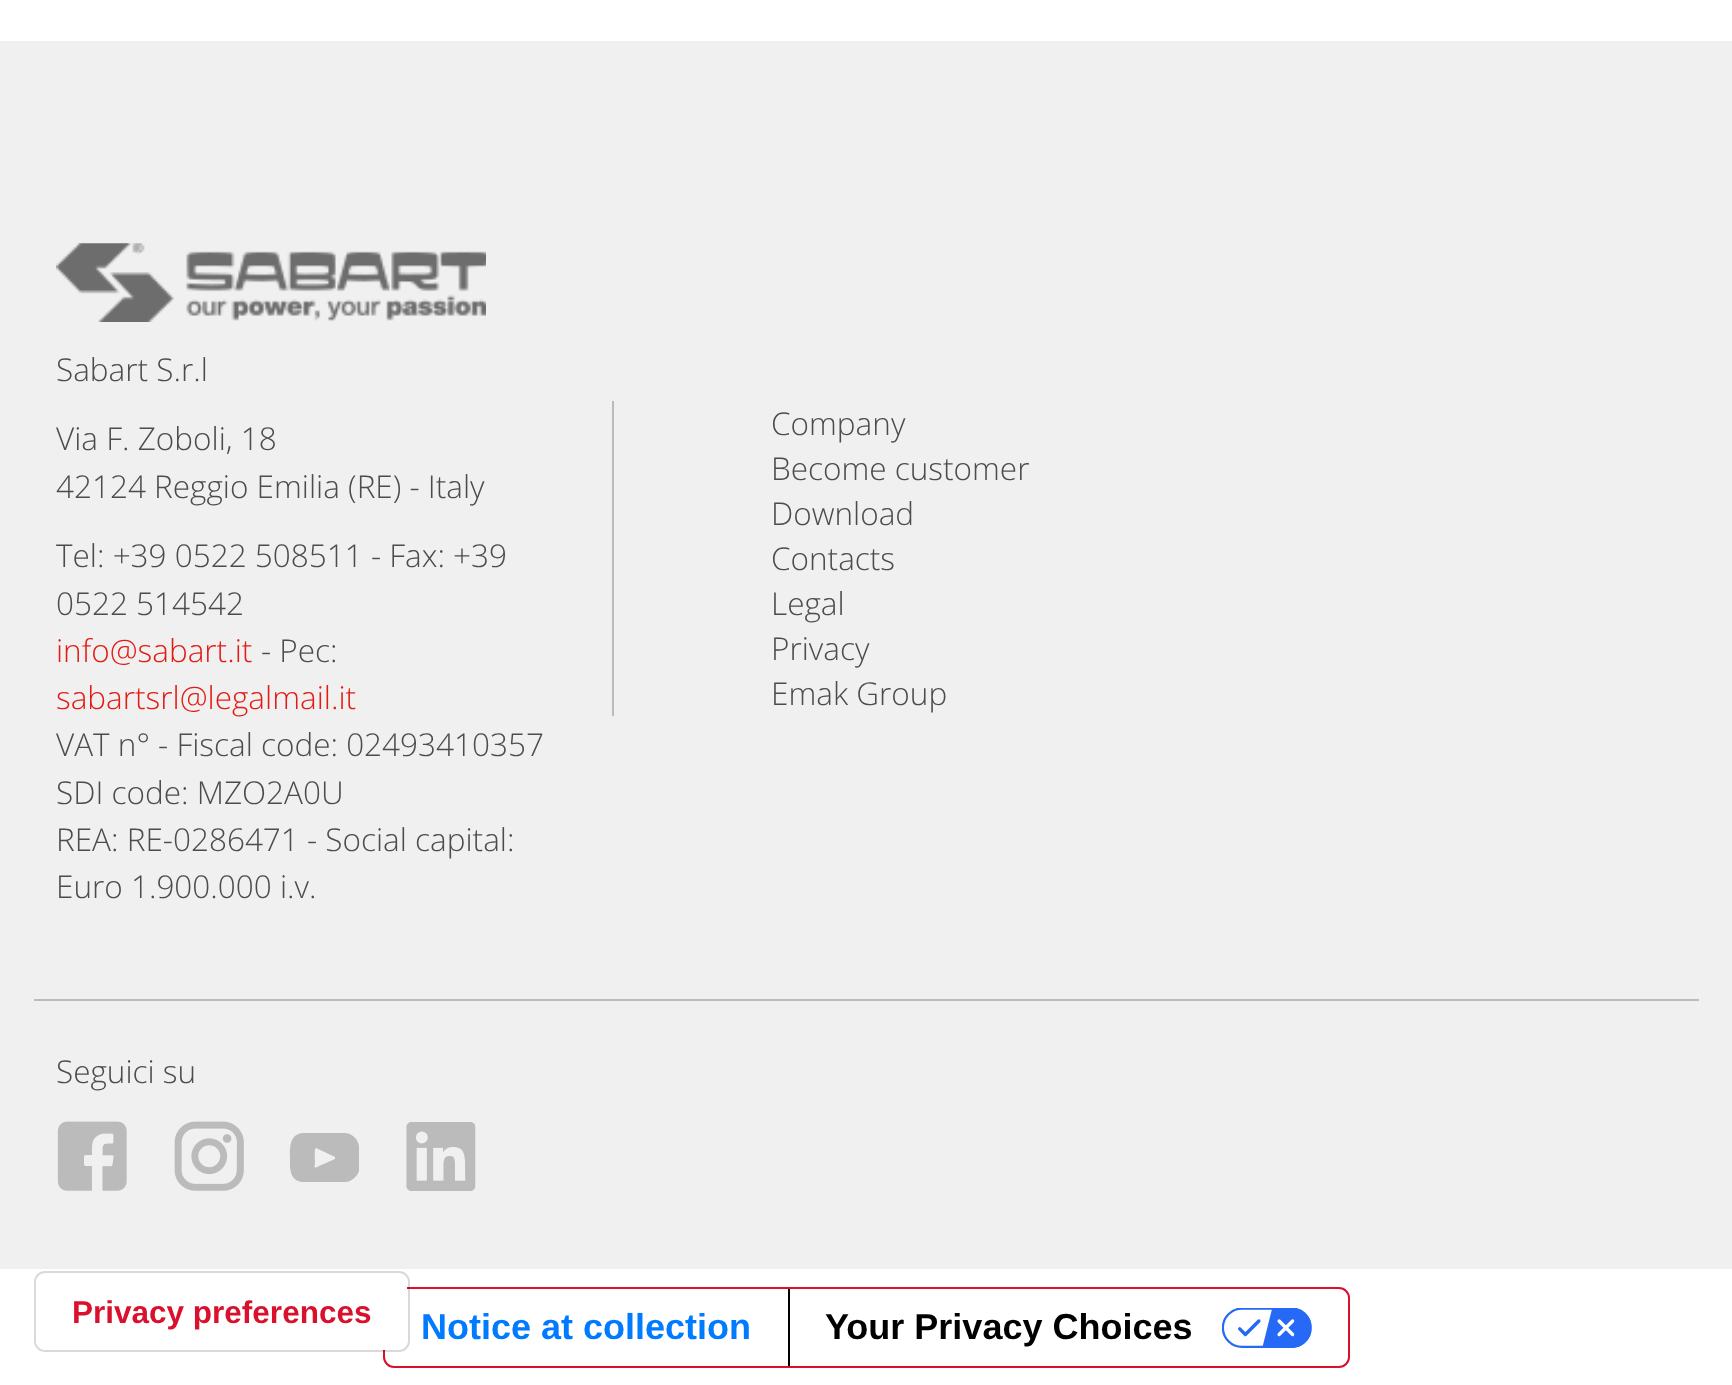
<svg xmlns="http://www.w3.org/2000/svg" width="1732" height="1385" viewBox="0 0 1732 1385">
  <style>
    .t1 { font: 300 31.5px Open Sans; fill: #4c4c4c; }
    .t2 { font: 300 31.5px Open Sans; fill: #e41b13; }
    .t3 { font: bold 31.5px Liberation Sans; fill: #d9112c; }
    .t4 { font: bold 36px Liberation Sans; fill: #007bff; }
    .t5 { font: bold 36px Liberation Sans; fill: #000; }
  </style>
  <rect width="100%" height="100%" fill="#fff"/>
  <rect x="0" y="41" width="1732" height="1228" fill="#f0f0f0"/>
  <image x="56" y="243" width="430" height="79" href="images/1.png"/>
  <text x="56" y="381" class="t1">Sabart S.r.l</text>
  <text x="56" y="450" class="t1">Via F. Zoboli, 18</text>
  <text x="56" y="498" class="t1">42124 Reggio Emilia (RE) - Italy</text>
  <text x="56" y="567" class="t1">Tel: +39 0522 508511 - Fax: +39</text>
  <text x="56" y="615" class="t1">0522 514542</text>
  <text x="56" y="662" class="t2">info@sabart.it</text>
  <text x="261" y="662" class="t1">- Pec:</text>
  <text x="56" y="709" class="t2">sabartsrl@legalmail.it</text>
  <text x="56" y="756" class="t1">VAT n° - Fiscal code: 02493410357</text>
  <text x="56" y="804" class="t1">SDI code: MZO2A0U</text>
  <text x="56" y="851" class="t1">REA: RE-0286471 - Social capital:</text>
  <text x="56" y="898" class="t1">Euro 1.900.000 i.v.</text>
  <rect x="612" y="401" width="2" height="315" fill="#bbb"/>
  <text x="771" y="435" class="t1">Company</text>
  <text x="771" y="480" class="t1">Become customer</text>
  <text x="771" y="525" class="t1">Download</text>
  <text x="771" y="570" class="t1">Contacts</text>
  <text x="771" y="615" class="t1">Legal</text>
  <text x="771" y="660" class="t1">Privacy</text>
  <text x="771" y="705" class="t1">Emak Group</text>
  <rect x="34" y="999" width="1665" height="2" fill="#bbb"/>
  <text x="56" y="1083" class="t1">Seguici su</text>
  <image x="57" y="1121" width="70" height="70" href="images/2.png"/>
  <image x="174" y="1121" width="70" height="70" href="images/3.png"/>
  <path d="M335 1159L319 1166C313 1169 315 1168 315 1161C315 1159 314 1148 316 1148L335 1157ZM344 1133H302C289 1135 290 1148 290 1158C290 1168 289 1180 302 1182H345C351 1182 357 1177 359 1171V1146C358 1139 352 1133 344 1133Z" fill="#bbb"/>
  <image x="406" y="1122" width="70" height="69" href="images/4.png"/>
  <rect x="384" y="1288" width="965" height="79" rx="10" fill="none" stroke="#d9112c" stroke-width="2"/>
  <rect x="35" y="1272" width="374" height="79" rx="10" fill="none" stroke="#00000026" stroke-width="2"/>
  <rect x="36" y="1274" width="371" height="76" rx="9" fill="#fff"/>
  <text x="72" y="1323" class="t3">Privacy preferences</text>
  <text x="421" y="1339" class="t4">Notice at collection</text>
  <rect x="788" y="1289" width="2" height="77" fill="#000"/>
  <text x="825" y="1339" class="t5">Your Privacy Choices</text>
  <image x="1222" y="1308" width="90" height="40" href="images/5.png"/>
</svg>
